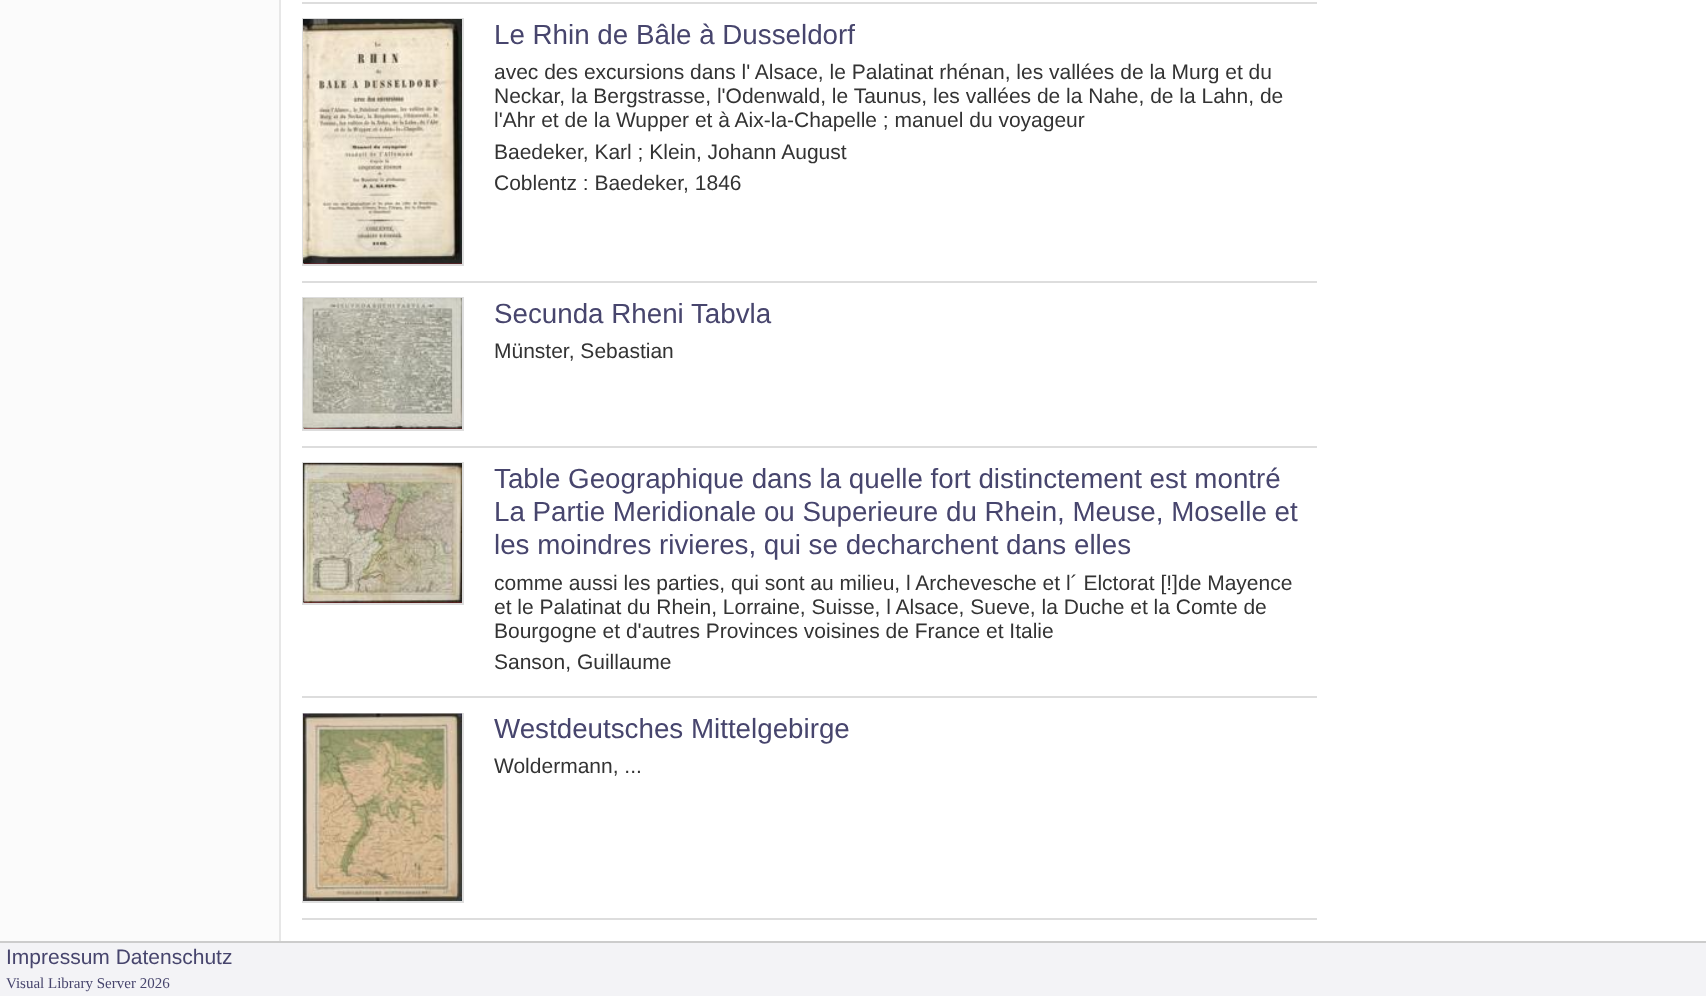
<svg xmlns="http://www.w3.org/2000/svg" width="1706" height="996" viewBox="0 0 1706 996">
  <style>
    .t1 { font: 27.75px Liberation Sans; fill: #47456d; }
    .t2 { font: 21px Liberation Sans; fill: #333; }
    .t3 { font: 21px Liberation Sans; fill: #47456d; }
    .t4 { font: 15px Liberation Serif; fill: #47456d; }
  </style>
  <rect width="100%" height="100%" fill="#fff"/>
  <rect x="0" y="0" width="279" height="941" fill="#fbfbfb"/>
  <rect x="279" y="0" width="2" height="941" fill="#e7e7e7"/>
  <rect x="302" y="2" width="1015" height="2" fill="#ddd"/>
  <rect x="304" y="263" width="158" height="1" fill="#7e1e29"/>
  <rect x="303" y="19" width="160" height="246" fill="none" stroke="#ddd" stroke-width="2"/>
  <image x="303" y="19" width="159" height="245" href="images/1.png"/>
  <text x="494" y="44" class="t1">Le Rhin de Bâle à Dusseldorf</text>
  <text x="494" y="79" class="t2">avec des excursions dans l' Alsace, le Palatinat rhénan, les vallées de la Murg et du</text>
  <text x="494" y="103" class="t2">Neckar, la Bergstrasse, l'Odenwald, le Taunus, les vallées de la Nahe, de la Lahn, de</text>
  <text x="494" y="127" class="t2">l'Ahr et de la Wupper et à Aix-la-Chapelle ; manuel du voyageur</text>
  <text x="494" y="159" class="t2">Baedeker, Karl ; Klein, Johann August</text>
  <text x="494" y="190" class="t2">Coblentz : Baedeker, 1846</text>
  <rect x="302" y="281" width="1015" height="2" fill="#ddd"/>
  <rect x="304" y="428" width="158" height="1" fill="#7e1e29"/>
  <rect x="303" y="298" width="160" height="132" fill="none" stroke="#ddd" stroke-width="2"/>
  <image x="303" y="298" width="159" height="131" href="images/2.png"/>
  <text x="494" y="323" class="t1">Secunda Rheni Tabvla</text>
  <text x="494" y="358" class="t2">Münster, Sebastian</text>
  <rect x="302" y="446" width="1015" height="2" fill="#ddd"/>
  <rect x="304" y="602" width="158" height="1" fill="#7e1e29"/>
  <rect x="303" y="463" width="160" height="141" fill="none" stroke="#ddd" stroke-width="2"/>
  <image x="303" y="463" width="159" height="140" href="images/3.png"/>
  <text x="494" y="488" class="t1">Table Geographique dans la quelle fort distinctement est montré</text>
  <text x="494" y="521" class="t1">La Partie Meridionale ou Superieure du Rhein, Meuse, Moselle et</text>
  <text x="494" y="554" class="t1">les moindres rivieres, qui se decharchent dans elles</text>
  <text x="494" y="590" class="t2">comme aussi les parties, qui sont au milieu, l Archevesche et l´ Elctorat [!]de Mayence</text>
  <text x="494" y="614" class="t2">et le Palatinat du Rhein, Lorraine, Suisse, l Alsace, Sueve, la Duche et la Comte de</text>
  <text x="494" y="638" class="t2">Bourgogne et d'autres Provinces voisines de France et Italie</text>
  <text x="494" y="669" class="t2">Sanson, Guillaume</text>
  <rect x="302" y="696" width="1015" height="2" fill="#ddd"/>
  <rect x="302" y="918" width="1015" height="2" fill="#ddd"/>
  <rect x="303" y="714" width="160" height="188" fill="none" stroke="#ddd" stroke-width="2"/>
  <image x="303" y="713" width="159" height="188" href="images/4.png"/>
  <text x="494" y="738" class="t1">Westdeutsches Mittelgebirge</text>
  <text x="494" y="773" class="t2">Woldermann, ...</text>
  <rect x="0" y="943" width="1706" height="53" fill="#f3f3f6"/>
  <rect x="0" y="941" width="1706" height="2" fill="#ccc"/>
  <text x="6" y="964" class="t3">Impressum Datenschutz</text>
  <text x="6" y="988" class="t4">Visual Library Server 2026</text>
</svg>
